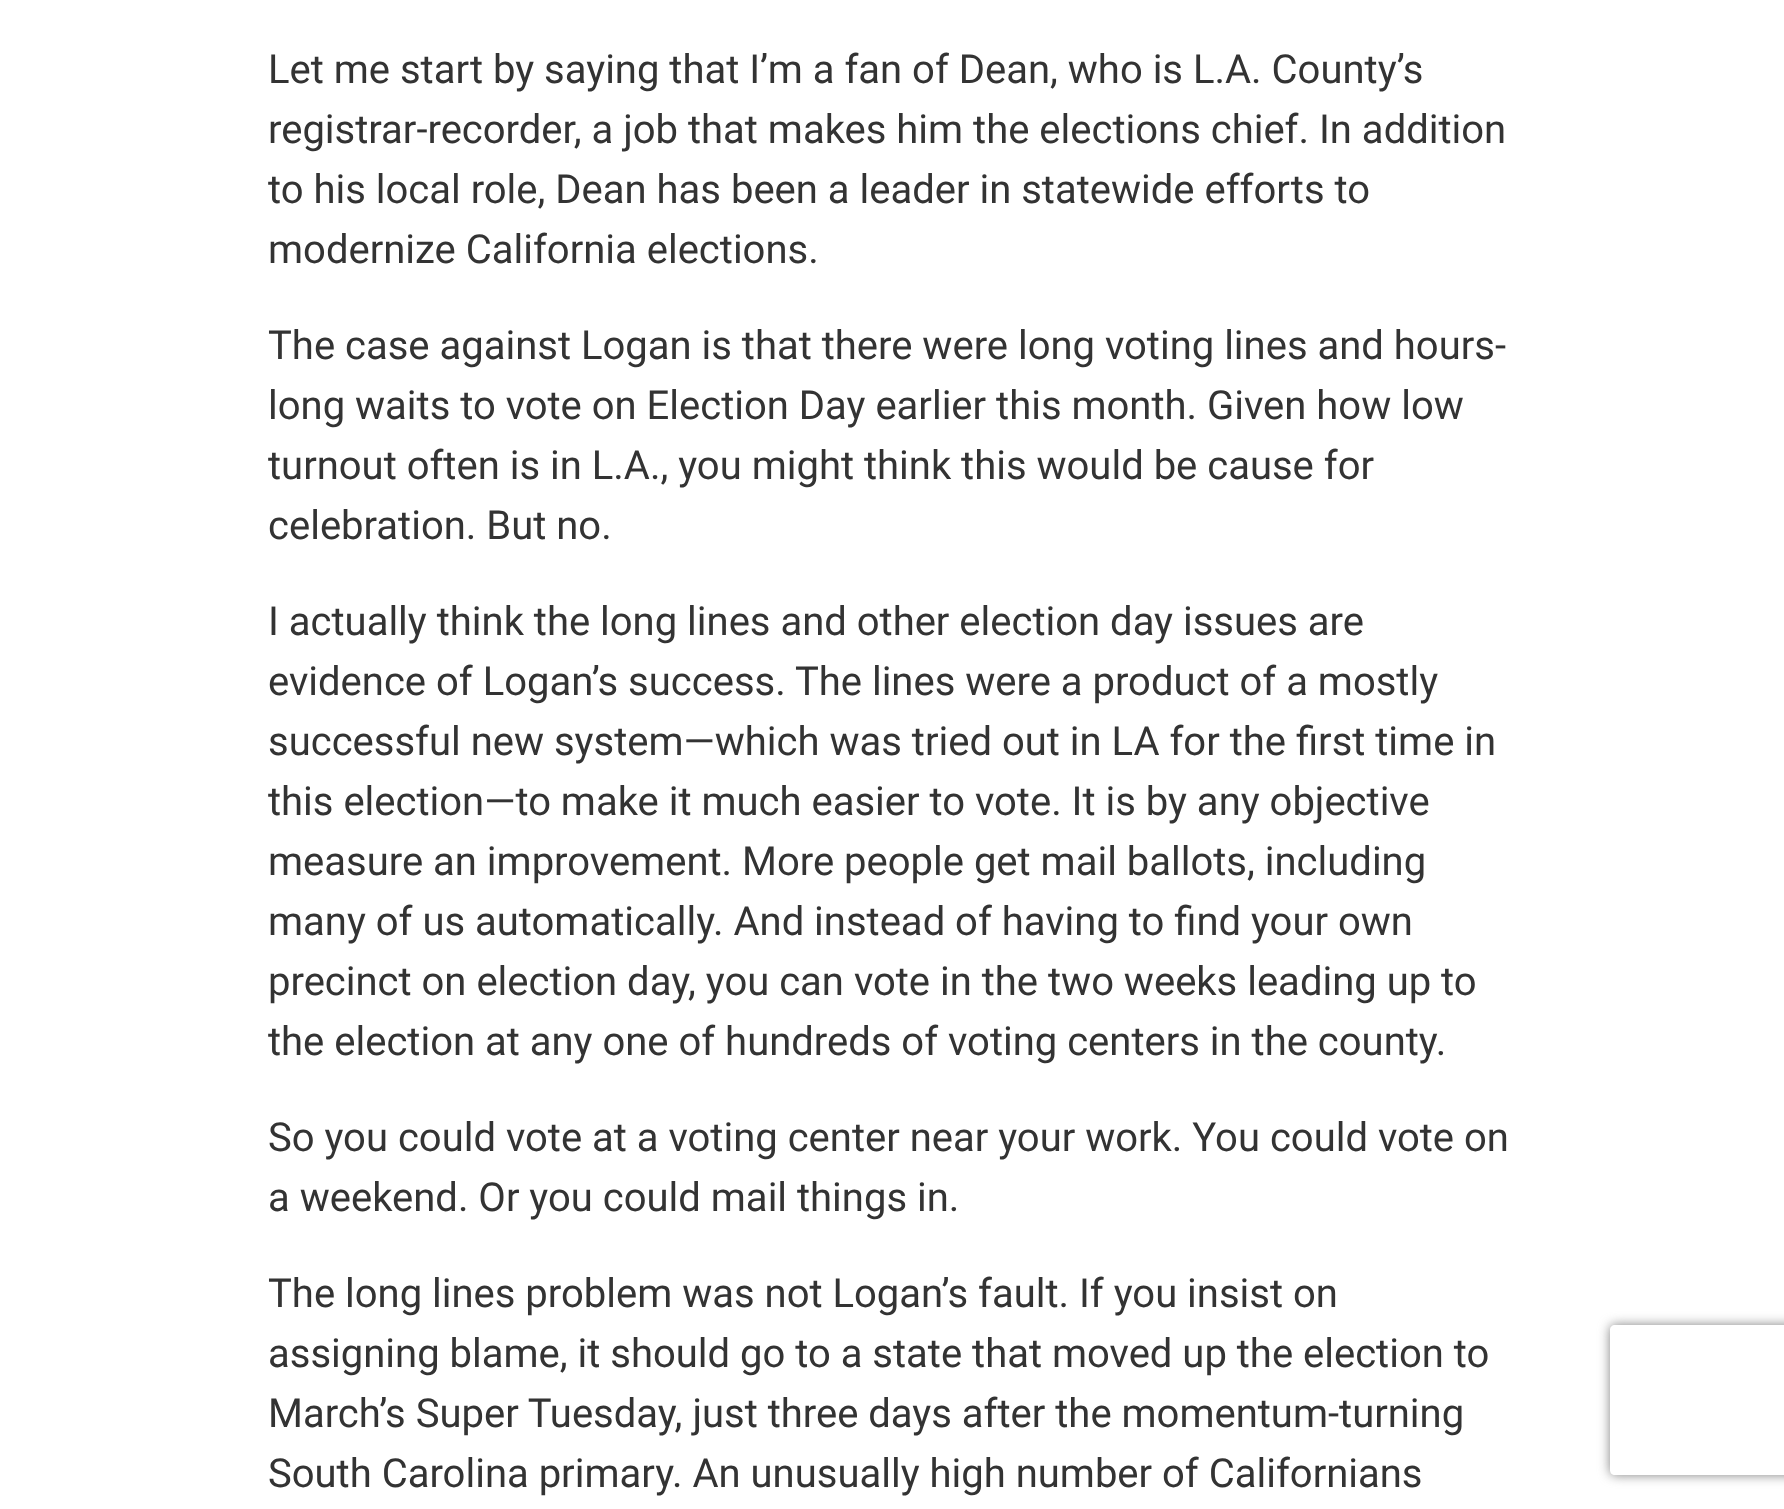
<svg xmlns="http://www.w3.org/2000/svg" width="1784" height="1509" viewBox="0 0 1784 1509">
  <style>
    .t1 { font: 40px Roboto; fill: #333; }
  </style>
  <defs>
    <clipPath id="clip1"><path d="M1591 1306H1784V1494H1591ZM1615 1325H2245C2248 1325 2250 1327 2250 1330V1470C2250 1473 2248 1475 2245 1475H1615C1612 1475 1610 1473 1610 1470V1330C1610 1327 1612 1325 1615 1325Z" clip-rule="evenodd"/></clipPath>
  </defs>
  <rect width="100%" height="100%" fill="#fff"/>
  <text x="268" y="83" class="t1">Let me start by saying that I’m a fan of Dean, who is L.A. County’s</text>
  <text x="268" y="143" class="t1">registrar-recorder, a job that makes him the elections chief. In addition</text>
  <text x="268" y="203" class="t1">to his local role, Dean has been a leader in statewide efforts to</text>
  <text x="268" y="263" class="t1">modernize California elections.</text>
  <text x="268" y="359" class="t1">The case against Logan is that there were long voting lines and hours-</text>
  <text x="268" y="419" class="t1">long waits to vote on Election Day earlier this month. Given how low</text>
  <text x="268" y="479" class="t1">turnout often is in L.A., you might think this would be cause for</text>
  <text x="268" y="539" class="t1">celebration. But no.</text>
  <text x="268" y="635" class="t1">I actually think the long lines and other election day issues are</text>
  <text x="268" y="695" class="t1">evidence of Logan’s success. The lines were a product of a mostly</text>
  <text x="268" y="755" class="t1">successful new system—which was tried out in LA for the first time in</text>
  <text x="268" y="815" class="t1">this election—to make it much easier to vote. It is by any objective</text>
  <text x="268" y="875" class="t1">measure an improvement. More people get mail ballots, including</text>
  <text x="268" y="935" class="t1">many of us automatically. And instead of having to find your own</text>
  <text x="268" y="995" class="t1">precinct on election day, you can vote in the two weeks leading up to</text>
  <text x="268" y="1055" class="t1">the election at any one of hundreds of voting centers in the county.</text>
  <text x="268" y="1151" class="t1">So you could vote at a voting center near your work. You could vote on</text>
  <text x="268" y="1211" class="t1">a weekend. Or you could mail things in.</text>
  <text x="268" y="1307" class="t1">The long lines problem was not Logan’s fault. If you insist on</text>
  <text x="268" y="1367" class="t1">assigning blame, it should go to a state that moved up the election to</text>
  <text x="268" y="1427" class="t1">March’s Super Tuesday, just three days after the momentum-turning</text>
  <text x="268" y="1487" class="t1">South Carolina primary. An unusually high number of Californians</text>
  <g clip-path="url(#clip1)">
    <rect x="1610" y="1325" width="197" height="150" rx="5" fill="#808080" filter="blur(6px)"/>
  </g>
</svg>
